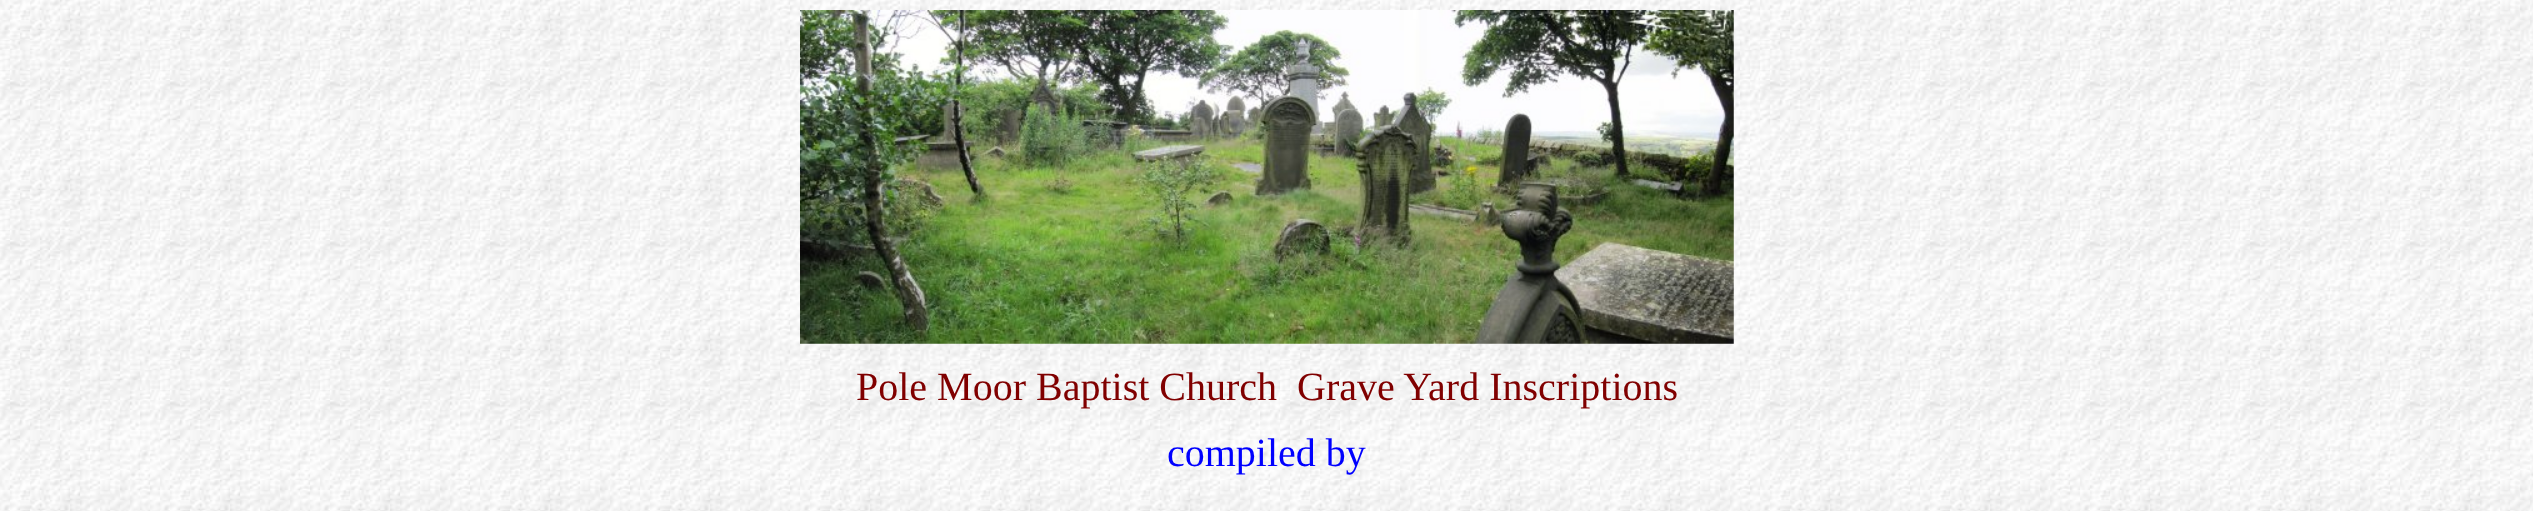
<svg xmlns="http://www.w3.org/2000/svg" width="2533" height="511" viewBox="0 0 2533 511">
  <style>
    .t1 { font: 40px Liberation Serif; fill: #800000; }
    .t2 { font: 40px Liberation Serif; fill: #00f; }
  </style>
  <rect width="100%" height="100%" fill="#fff"/>
  <image x="0" y="0" width="2533" height="511" href="images/1.png"/>
  <image x="800" y="10" width="934" height="334" href="images/2.png"/>
  <text x="856" y="400" class="t1">Pole Moor Baptist Church</text>
  <text x="1297" y="400" class="t1">Grave Yard Inscriptions</text>
  <text x="1167" y="466" class="t2">compiled by</text>
</svg>
